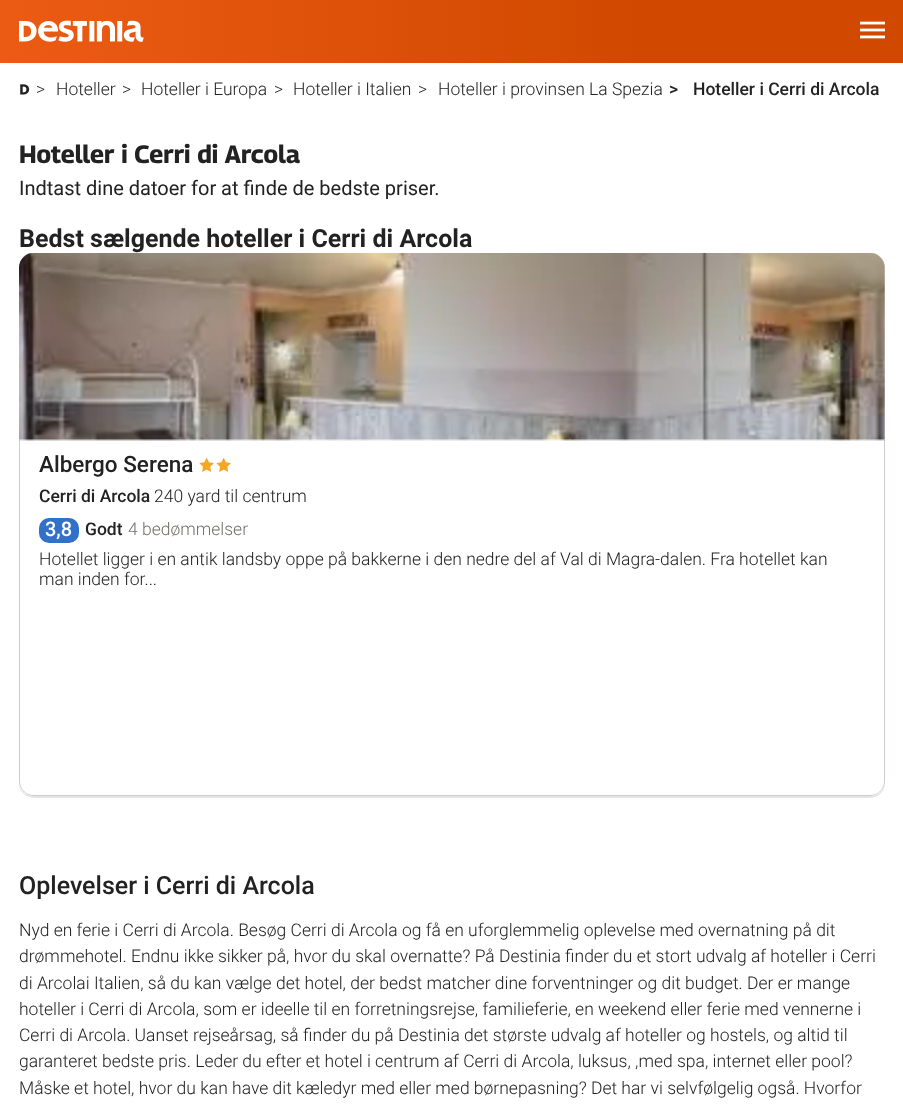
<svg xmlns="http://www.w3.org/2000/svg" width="903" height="1115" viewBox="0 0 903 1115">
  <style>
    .t1 { font: 300 17.5px Roboto; fill: #222; }
    .t2 { font: 500 17.5px Roboto; fill: #222; }
    .t3 { font: bold 25px Georama; fill: #222; }
    .t4 { font: 20px Roboto; fill: #222; }
    .t5 { font: bold 25px Roboto; fill: #222; }
    .t6 { font: 500 22.5px Roboto; fill: #222; }
    .t7 { font: 500 20px Roboto; fill: #fff; }
    .t8 { font: 300 17.5px Roboto; fill: #74716e; }
    .t9 { font: 500 25px Roboto; fill: #222; }
  </style>
  <defs>
    <linearGradient id="g1" gradientUnits="userSpaceOnUse" x1="0" y1="31" x2="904" y2="31"><stop offset="0" stop-color="#ec5b14"/><stop offset="0.7" stop-color="#d14900"/></linearGradient>
    <clipPath id="clip1"><path d="M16 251H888V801H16ZM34 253H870C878.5 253 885 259.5 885 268V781C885 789.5 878.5 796 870 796H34C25.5 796 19 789.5 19 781V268C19 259.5 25.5 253 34 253Z" clip-rule="evenodd"/></clipPath>
  </defs>
  <rect width="100%" height="100%" fill="#fff"/>
  <rect x="0" y="0" width="903" height="63" fill="url(#g1)"/>
  <image x="19" y="20" width="125" height="22" href="images/1.png"/>
  <image x="860" y="21" width="25" height="18" href="images/2.png"/>
  <image x="20" y="84" width="10" height="11" href="images/3.png"/>
  <text x="36" y="95" class="t1">&gt;</text>
  <text x="56" y="95" class="t1">Hoteller</text>
  <text x="122" y="95" class="t1">&gt;</text>
  <text x="141" y="95" class="t1">Hoteller i Europa</text>
  <text x="274" y="95" class="t1">&gt;</text>
  <text x="293" y="95" class="t1">Hoteller i Italien</text>
  <text x="418" y="95" class="t1">&gt;</text>
  <text x="438" y="95" class="t1">Hoteller i provinsen La Spezia</text>
  <text x="669" y="95" class="t2">&gt;</text>
  <text x="693" y="95" class="t2">Hoteller i Cerri di Arcola</text>
  <text x="19" y="163" class="t3">Hoteller i Cerri di Arcola</text>
  <text x="19" y="195" class="t4">Indtast dine datoer for at finde de bedste priser.</text>
  <text x="19" y="247" class="t5">Bedst sælgende hoteller i Cerri di Arcola</text>
  <g clip-path="url(#clip1)">
    <rect x="19" y="254" width="866" height="544" rx="15" fill="#0000001a" filter="blur(0.5px)"/>
  </g>
  <rect x="19" y="253" width="866" height="543" rx="15" fill="#fff"/>
  <path d="M19 440H885V781C885 789.5 878.5 796 870 796H34C25.5 796 19 789.5 19 781Z" fill="#fff"/>
  <path d="M20 440H19V781C19 789 26 796 34 796H870C878 796 885 789 885 781V440H884V781C884 789 878 795 870 795H34C26 795 20 789 20 781Z" fill="#d0cbc9"/>
  <image x="19" y="253" width="866" height="188" href="images/4.png"/>
  <text x="39" y="472" class="t6">Albergo Serena</text>
  <image x="199" y="458" width="32" height="14" href="images/5.png"/>
  <text x="39" y="502" class="t2">Cerri di Arcola</text>
  <text x="154" y="502" class="t1">240 yard til centrum</text>
  <rect x="39" y="518" width="40" height="25" rx="10" fill="#3171c9"/>
  <text x="45" y="536" class="t7">3,8</text>
  <text x="85" y="535" class="t2">Godt</text>
  <text x="128" y="535" class="t8">4 bedømmelser</text>
  <text x="39" y="565" class="t1">Hotellet ligger i en antik landsby oppe på bakkerne i den nedre del af Val di Magra-dalen. Fra hotellet kan</text>
  <text x="39" y="585" class="t1">man inden for...</text>
  <text x="19" y="894" class="t9">Oplevelser i Cerri di Arcola</text>
  <text x="19" y="936" class="t1">Nyd en ferie i Cerri di Arcola. Besøg Cerri di Arcola og få en uforglemmelig oplevelse med overnatning på dit</text>
  <text x="19" y="962" class="t1">drømmehotel. Endnu ikke sikker på, hvor du skal overnatte? På Destinia finder du et stort udvalg af hoteller i Cerri</text>
  <text x="19" y="989" class="t1">di Arcolai Italien, så du kan vælge det hotel, der bedst matcher dine forventninger og dit budget. Der er mange</text>
  <text x="19" y="1015" class="t1">hoteller i Cerri di Arcola, som er ideelle til en forretningsrejse, familieferie, en weekend eller ferie med vennerne i</text>
  <text x="19" y="1041" class="t1">Cerri di Arcola. Uanset rejseårsag, så finder du på Destinia det største udvalg af hoteller og hostels, og altid til</text>
  <text x="19" y="1067" class="t1">garanteret bedste pris. Leder du efter et hotel i centrum af Cerri di Arcola, luksus, ,med spa, internet eller pool?</text>
  <text x="19" y="1094" class="t1">Måske et hotel, hvor du kan have dit kæledyr med eller med børnepasning? Det har vi selvfølgelig også. Hvorfor</text>
</svg>
